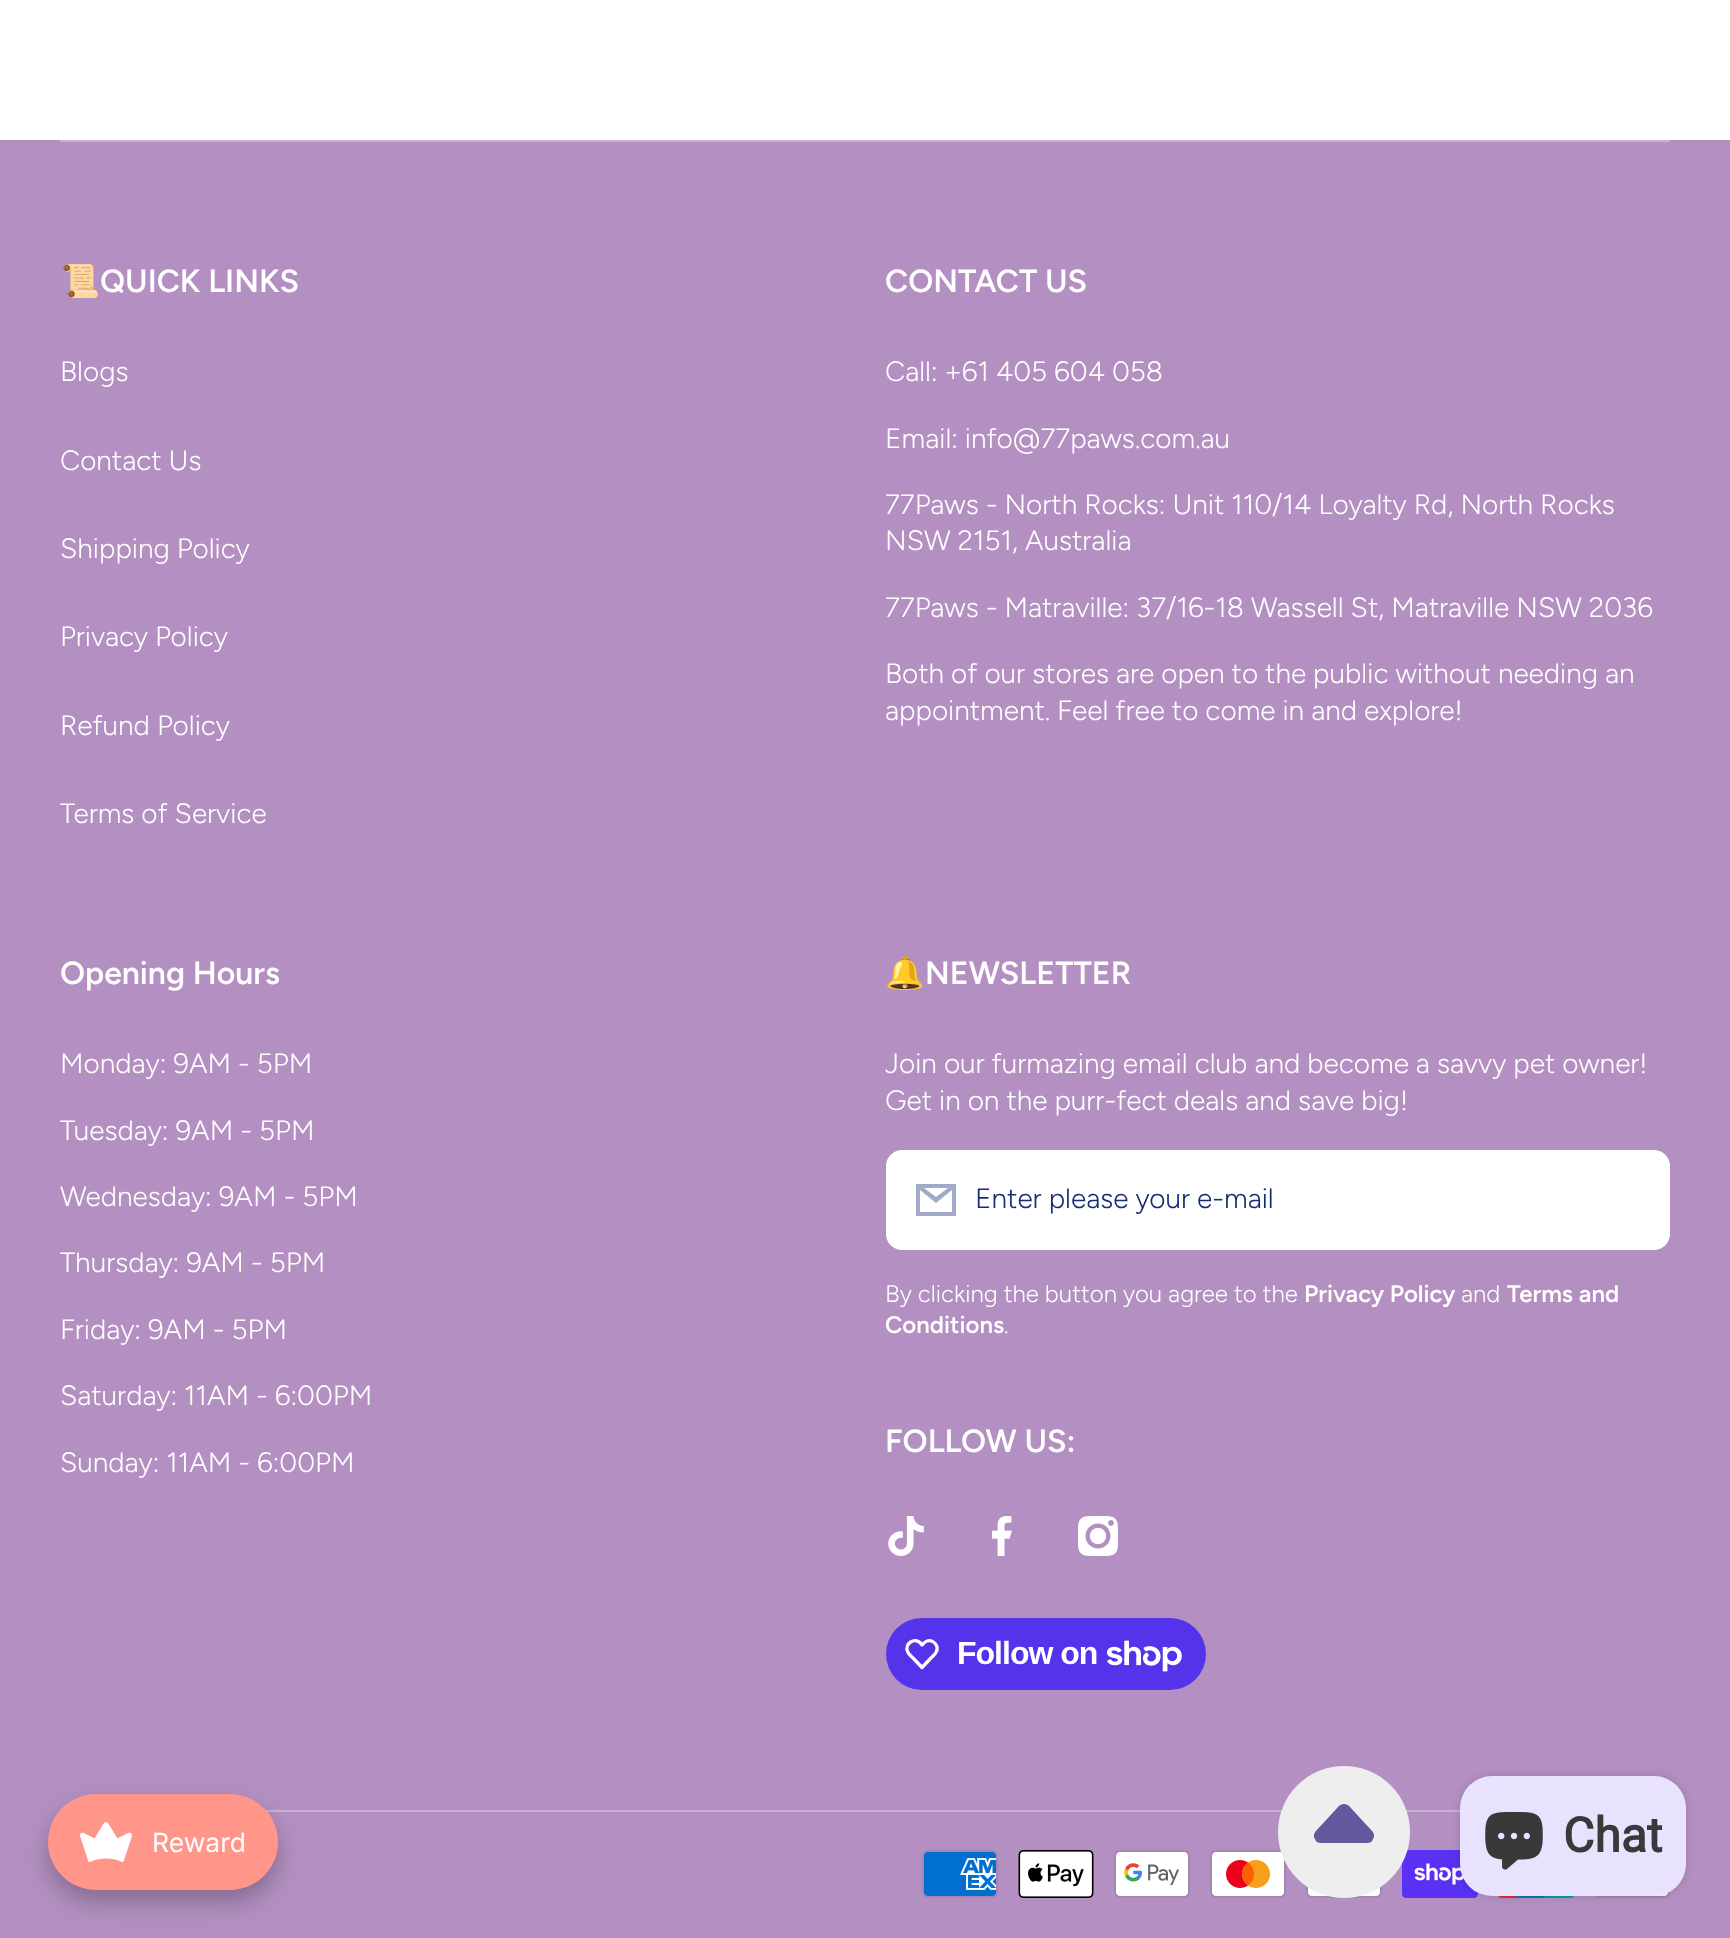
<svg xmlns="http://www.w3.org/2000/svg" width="1730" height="1938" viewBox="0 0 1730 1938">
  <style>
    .t1 { font: bold 32px Noto Color Emoji; fill: #fff; }
    .t2 { font: 600 32px Figtree; fill: #fff; }
    .t3 { font: 300 28px Figtree; fill: #fff; }
    .t4 { font: 300 28px Figtree; fill: #142c73; }
    .t5 { font: 300 24px Figtree; fill: #fff; }
    .t6 { font: 600 24px Figtree; fill: #fff; }
    .t7 { font: bold 32px Liberation Sans; letter-spacing: -1px; fill: #fff; }
    .t8 { font: 26.5px Inter; fill: #fff; }
    .t9 { font: bold 48px Roboto; fill: #393939; }
  </style>
  <rect width="100%" height="100%" fill="#fff"/>
  <rect x="0" y="140" width="1730" height="1798" fill="#b390c1"/>
  <rect x="60" y="140" width="1610" height="2" fill="#cab1d4"/>
  <text x="60" y="292" class="t1">📜</text>
  <text x="100" y="292" class="t2">QUICK LINKS</text>
  <text x="60" y="381" class="t3">Blogs</text>
  <text x="60" y="470" class="t3">Contact Us</text>
  <text x="60" y="558" class="t3">Shipping Policy</text>
  <text x="60" y="646" class="t3">Privacy Policy</text>
  <text x="60" y="735" class="t3">Refund Policy</text>
  <text x="60" y="823" class="t3">Terms of Service</text>
  <text x="885" y="292" class="t2">CONTACT US</text>
  <text x="885" y="381" class="t3">Call: +61 405 604 058</text>
  <text x="885" y="448" class="t3">Email: info@77paws.com.au</text>
  <text x="885" y="514" class="t3">77Paws - North Rocks: Unit 110/14 Loyalty Rd, North Rocks</text>
  <text x="885" y="550" class="t3">NSW 2151, Australia</text>
  <text x="885" y="617" class="t3">77Paws - Matraville: 37/16-18 Wassell St, Matraville NSW 2036</text>
  <text x="885" y="683" class="t3">Both of our stores are open to the public without needing an</text>
  <text x="885" y="720" class="t3">appointment. Feel free to come in and explore!</text>
  <text x="60" y="984" class="t2">Opening Hours</text>
  <text x="60" y="1073" class="t3">Monday: 9AM - 5PM</text>
  <text x="60" y="1140" class="t3">Tuesday: 9AM - 5PM</text>
  <text x="60" y="1206" class="t3">Wednesday: 9AM - 5PM</text>
  <text x="60" y="1272" class="t3">Thursday: 9AM - 5PM</text>
  <text x="60" y="1339" class="t3">Friday: 9AM - 5PM</text>
  <text x="60" y="1405" class="t3">Saturday: 11AM - 6:00PM</text>
  <text x="60" y="1472" class="t3">Sunday: 11AM - 6:00PM</text>
  <text x="885" y="984" class="t1">🔔</text>
  <text x="925" y="984" class="t2">NEWSLETTER</text>
  <text x="885" y="1073" class="t3">Join our furmazing email club and become a savvy pet owner!</text>
  <text x="885" y="1110" class="t3">Get in on the purr-fect deals and save big!</text>
  <rect x="886" y="1150" width="784" height="100" rx="16" fill="#fff"/>
  <path d="M948 1188H924L936 1197ZM920 1190V1212H952V1190L936 1203ZM916 1216V1184H956V1216Z" fill="#a1abc7" fill-rule="evenodd"/>
  <text x="975" y="1208" class="t4">Enter please your e-mail</text>
  <text x="885" y="1302" class="t5">By clicking the button you agree to the</text>
  <text x="1304" y="1302" class="t6">Privacy Policy</text>
  <text x="1461" y="1302" class="t5">and</text>
  <text x="1507" y="1302" class="t6">Terms and</text>
  <text x="885" y="1333" class="t6">Conditions</text>
  <text x="1004" y="1333" class="t5">.</text>
  <text x="885" y="1452" class="t2">FOLLOW US:</text>
  <image x="888" y="1516" width="36" height="40" href="images/1.png"/>
  <image x="992" y="1516" width="20" height="40" href="images/2.png"/>
  <image x="1078" y="1516" width="40" height="40" href="images/3.png"/>
  <rect x="886" y="1618" width="320" height="72" rx="36" fill="#5433eb"/>
  <path d="M920.5 1643L922 1645C923.5 1643.5 925 1641.5 927 1641C933 1639 939 1645.5 936.5 1651.5C935.5 1654.5 932.5 1656.5 930.5 1658.5L922 1667.5L913.5 1658.5C911.5 1656.5 908.5 1654.5 907.5 1651.5C904.5 1643.5 914.5 1637 920.5 1643Z" fill="none" stroke="#fff" stroke-width="3.3" stroke-linejoin="round"/>
  <text x="957" y="1664" class="t7">Follow on</text>
  <image x="1107" y="1640" width="75" height="32" href="images/4.png"/>
  <rect x="60" y="1810" width="1400" height="2" fill="#cab1d4"/>
  <image x="922" y="1850" width="76" height="48" href="images/5.png"/>
  <image x="1018" y="1850" width="76" height="48" href="images/6.png"/>
  <image x="1114" y="1850" width="76" height="48" href="images/7.png"/>
  <image x="1210" y="1850" width="76" height="48" href="images/8.png"/>
  <image x="1306" y="1886" width="76" height="12" href="images/9.png"/>
  <image x="1402" y="1850" width="76" height="48" href="images/10.png"/>
  <image x="1498" y="1896" width="76" height="2" href="images/11.png"/>
  <image x="1596" y="1891" width="74" height="7" href="images/12.png"/>
  <rect x="48" y="1806" width="230" height="96" rx="48" fill="#00000040" filter="blur(12px)"/>
  <rect x="48" y="1794" width="230" height="96" rx="48" fill="#ff9689"/>
  <image x="80" y="1822" width="52" height="40" href="images/13.png"/>
  <text x="152" y="1852" class="t8">Reward</text>
  <circle cx="1344" cy="1832" r="66" fill="#eee"/>
  <path d="M1321 1843H1367C1370 1843 1372 1842 1373 1839C1375 1837 1374 1833 1372 1831L1349 1806C1348 1805 1346 1804 1344 1804C1342 1804 1340 1805 1339 1806L1316 1831C1314 1833 1313 1837 1315 1839C1316 1842 1318 1843 1321 1843Z" fill="#61589e"/>
  <rect x="1460" y="1776" width="226" height="120" rx="32" fill="#00000026" filter="blur(5px)"/>
  <rect x="1460" y="1776" width="226" height="120" rx="32" fill="#e9e2ff"/>
  <image x="1485" y="1812" width="58" height="58" href="images/14.png"/>
  <text x="1563" y="1852" class="t9">Chat</text>
</svg>
